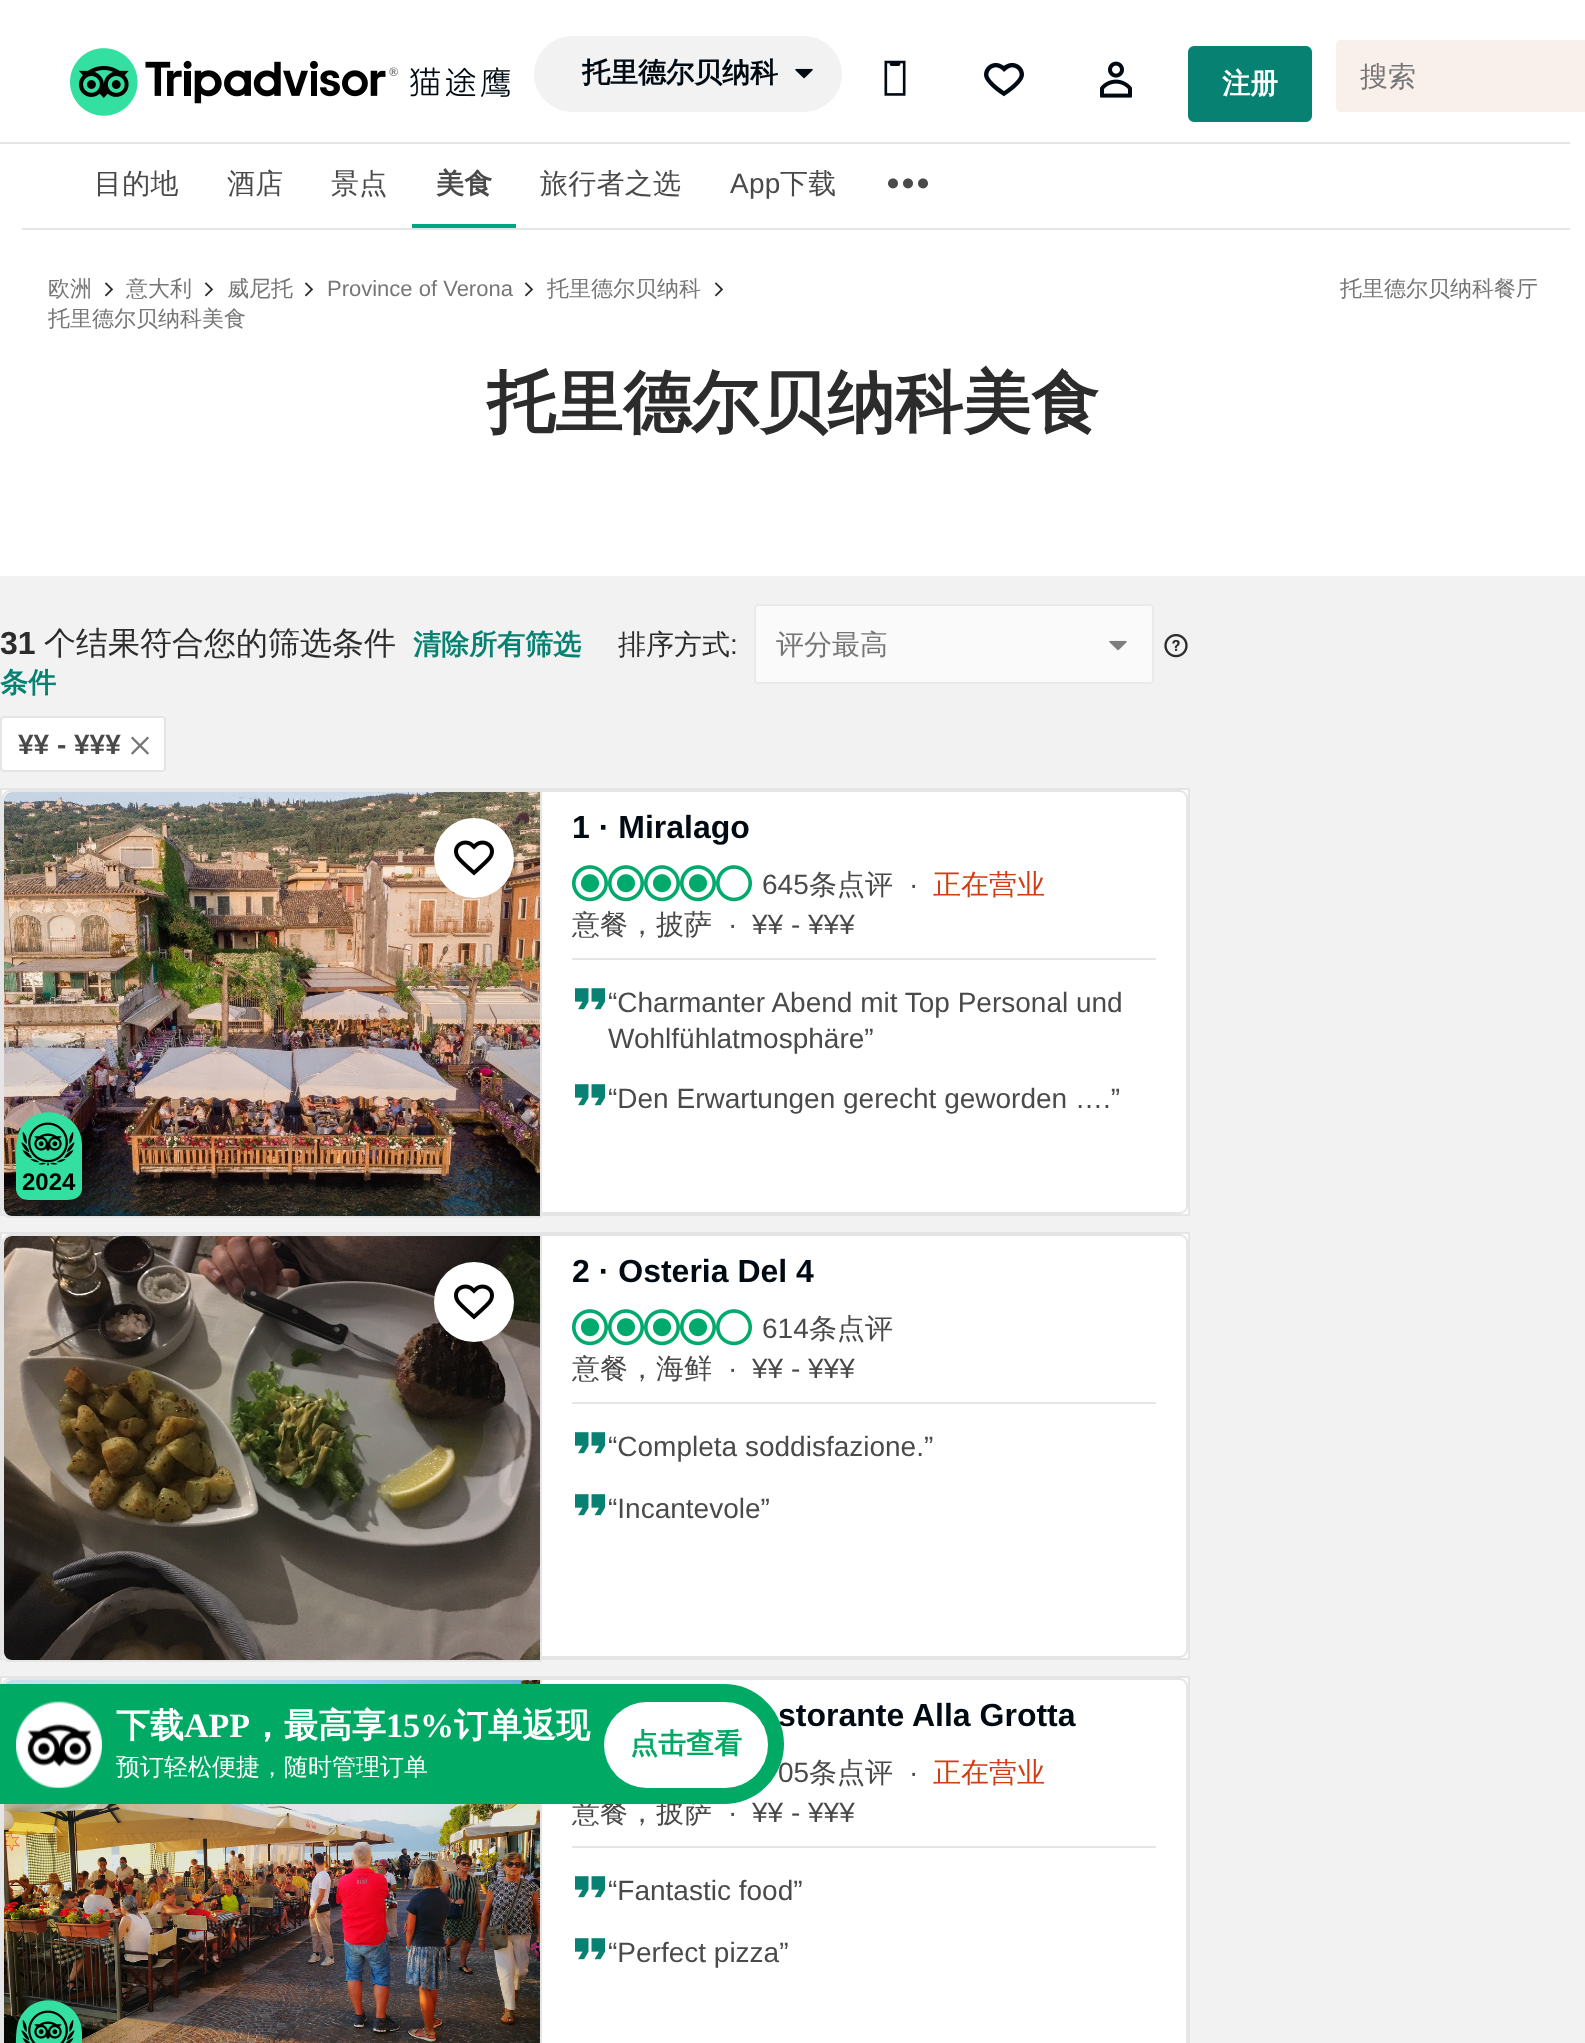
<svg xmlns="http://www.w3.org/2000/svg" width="1585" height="2043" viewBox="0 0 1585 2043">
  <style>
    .t1 { font: bold 28px WenQuanYi Zen Hei; fill: #000a12; }
    .t2 { font: bold 28px WenQuanYi Zen Hei; fill: #fff; }
    .t3 { font: 500 28px WenQuanYi Zen Hei; fill: #767676; }
    .t4 { font: 500 28px WenQuanYi Zen Hei; letter-spacing: 0.25px; fill: #4a4a4a; }
    .t5 { font: bold 28px WenQuanYi Zen Hei; letter-spacing: 0.25px; fill: #4a4a4a; }
    .t6 { font: 28px Liberation Sans; letter-spacing: 0.25px; fill: #4a4a4a; }
    .t7 { font: 500 22px WenQuanYi Zen Hei; fill: #767676; }
    .t8 { font: 22px Liberation Sans; fill: #767676; }
    .t9 { font: bold 68px WenQuanYi Zen Hei; fill: #2c2c2c; }
    .t10 { font: bold 32px Liberation Sans; fill: #2c2c2c; }
    .t11 { font: 500 32px WenQuanYi Zen Hei; fill: #2c2c2c; }
    .t12 { font: bold 28px WenQuanYi Zen Hei; fill: #078171; }
    .t13 { font: 500 28px WenQuanYi Zen Hei; fill: #2c2c2c; }
    .t14 { font: 28px Liberation Sans; fill: #2c2c2c; }
    .t15 { font: bold 28px Liberation Sans; fill: #4a4a4a; }
    .t16 { font: bold 32px Liberation Sans; fill: #000a12; }
    .t17 { font: 28px Liberation Sans; fill: #4a4a4a; }
    .t18 { font: 500 28px WenQuanYi Zen Hei; fill: #4a4a4a; }
    .t19 { font: 500 28px WenQuanYi Zen Hei; fill: #d33c12; }
    .t20 { font: bold 24px Liberation Sans; fill: #000; }
    .t21 { font: bold 34px WenQuanYi Zen Hei; fill: #fff; }
    .t22 { font: bold 34px Liberation Serif; fill: #fff; }
    .t23 { font: 500 24px WenQuanYi Zen Hei; fill: #fff; }
    .t24 { font: bold 28px WenQuanYi Zen Hei; fill: #00a964; }
  </style>
  <defs>
    <clipPath id="clip1"><rect x="16" y="1112" width="66" height="88"/></clipPath>
  </defs>
  <rect width="100%" height="100%" fill="#fff"/>
  <image x="70" y="48" width="440" height="68" href="images/1.png"/>
  <rect x="534" y="36" width="308" height="76" rx="38" fill="#f2f2f2"/>
  <text x="582" y="82" class="t1">托里德尔贝纳科</text>
  <image x="795" y="68" width="18" height="11" href="images/2.png"/>
  <image x="884" y="60" width="22" height="36" href="images/3.png"/>
  <image x="984" y="62" width="40" height="35" href="images/4.png"/>
  <image x="1100" y="61" width="32" height="37" href="images/5.png"/>
  <rect x="1189" y="47" width="122" height="74" rx="5" fill="#078171" stroke="#078171" stroke-width="2"/>
  <text x="1222" y="93" class="t2">注册</text>
  <path d="M1340 40H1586V112H1340C1338 112 1336 110 1336 108V44C1336 42 1338 40 1340 40Z" fill="#f9f0ec"/>
  <text x="1360" y="86" class="t3">搜索</text>
  <rect x="0" y="142" width="1570" height="2" fill="#e5e5e5"/>
  <rect x="22" y="228" width="1548" height="2" fill="#e5e5e5"/>
  <text x="94" y="193" class="t4">目的地</text>
  <text x="227" y="193" class="t4">酒店</text>
  <text x="331" y="193" class="t4">景点</text>
  <rect x="412" y="224" width="104" height="4" fill="#00a680"/>
  <text x="436" y="193" class="t5">美食</text>
  <text x="540" y="193" class="t4">旅行者之选</text>
  <text x="730" y="193" class="t6">App</text>
  <text x="780" y="193" class="t4">下载</text>
  <image x="888" y="178" width="40" height="11" href="images/6.png"/>
  <text x="48" y="296" class="t7">欧洲</text>
  <image x="104" y="282" width="10" height="15" href="images/7.png"/>
  <text x="126" y="296" class="t7">意大利</text>
  <image x="204" y="282" width="10" height="15" href="images/7.png"/>
  <text x="227" y="296" class="t7">威尼托</text>
  <image x="304" y="282" width="10" height="15" href="images/7.png"/>
  <text x="327" y="296" class="t8">Province of Verona</text>
  <image x="524" y="282" width="10" height="15" href="images/7.png"/>
  <text x="547" y="296" class="t7">托里德尔贝纳科</text>
  <image x="714" y="282" width="10" height="15" href="images/7.png"/>
  <text x="48" y="326" class="t7">托里德尔贝纳科美食</text>
  <text x="1340" y="296" class="t7">托里德尔贝纳科餐厅</text>
  <text x="487" y="426" class="t9">托里德尔贝纳科美食</text>
  <rect x="0" y="576" width="1585" height="1467" fill="#f2f2f2"/>
  <text x="0" y="654" class="t10">31</text>
  <text x="44" y="654" class="t11">个结果符合您的筛选条件</text>
  <text x="413" y="654" class="t12">清除所有筛选</text>
  <text x="0" y="692" class="t12">条件</text>
  <text x="618" y="654" class="t13">排序方式</text>
  <text x="730" y="654" class="t14">:</text>
  <rect x="755" y="605" width="398" height="78" rx="3" fill="#fafafa" stroke="#eaeaea" stroke-width="2"/>
  <text x="776" y="654" class="t3">评分最高</text>
  <image x="1109" y="640" width="18" height="11" href="images/8.png"/>
  <image x="1164" y="633" width="24" height="25" href="images/9.png"/>
  <rect x="1" y="717" width="164" height="54" rx="3" fill="#fff" stroke="#e5e5e5" stroke-width="2"/>
  <text x="18" y="754" class="t15">¥¥ - ¥¥¥</text>
  <image x="131" y="736" width="18" height="19" href="images/10.png"/>
  <rect x="1" y="789" width="1188" height="426" fill="#fff" stroke="#e5e5e5" stroke-width="2"/>
  <path d="M542 790H1180C1184 790 1188 794 1188 798V1206C1188 1210 1184 1214 1180 1214H542ZM542 792H1180C1183 792 1186 795 1186 798V1206C1186 1209 1183 1212 1180 1212H542Z" fill="#e5e5e5" fill-rule="evenodd"/>
  <text x="572" y="838" class="t16">1 · Miralago</text>
  <image x="572" y="865" width="180" height="37" href="images/11.png"/>
  <text x="762" y="894" class="t17">645</text>
  <text x="809" y="894" class="t18">条点评</text>
  <text x="909" y="894" class="t17">·</text>
  <text x="933" y="894" class="t19">正在营业</text>
  <text x="572" y="934" class="t18">意餐，披萨</text>
  <text x="728" y="934" class="t17">·</text>
  <text x="752" y="934" class="t17">¥¥ - ¥¥¥</text>
  <rect x="572" y="958" width="584" height="2" fill="#e5e5e5"/>
  <image x="575" y="988" width="30" height="22" href="images/12.png"/>
  <text x="608" y="1012" class="t17">“Charmanter Abend mit Top Personal und</text>
  <text x="608" y="1048" class="t17">Wohlfühlatmosphäre”</text>
  <image x="575" y="1084" width="30" height="22" href="images/12.png"/>
  <text x="608" y="1108" class="t17">“Den Erwartungen gerecht geworden ….”</text>
  <path d="M10 791H541V1217H10C6 1217 3 1214 3 1210V798C3 794 6 791 10 791Z" fill="none" stroke="#e5e5e5" stroke-width="2"/>
  <path d="M12 792H540V1216H12C7.5 1216 4 1212.5 4 1208V800C4 795.5 7.5 792 12 792Z" fill="#fff"/>
  <image x="4" y="792" width="536" height="424" href="images/14.png"/>
  <circle cx="474" cy="858" r="40" fill="#fff"/>
  <image x="454" y="840" width="40" height="36" href="images/13.png"/>
  <g clip-path="url(#clip1)">
    <path d="M82 1146C83 1110 33 1099 19 1132C15 1142 16 1157 16 1167V1181C16 1186 15 1191 18 1195C22 1201 29 1200 35 1200H63C71 1200 80 1200 82 1190Z" fill="#34e0a1"/>
  </g>
  <image x="21" y="1122" width="54" height="44" href="images/15.png"/>
  <text x="22" y="1190" class="t20">2024</text>
  <rect x="1" y="1233" width="1188" height="426" fill="#fff" stroke="#e5e5e5" stroke-width="2"/>
  <path d="M10 1235H541V1661H10C6 1661 3 1658 3 1654V1242C3 1238 6 1235 10 1235Z" fill="none" stroke="#e5e5e5" stroke-width="2"/>
  <path d="M12 1236H540V1660H12C7.5 1660 4 1656.5 4 1652V1244C4 1239.5 7.5 1236 12 1236Z" fill="#fff"/>
  <image x="4" y="1236" width="536" height="424" href="images/16.png"/>
  <circle cx="474" cy="1302" r="40" fill="#fff"/>
  <image x="454" y="1284" width="40" height="36" href="images/13.png"/>
  <path d="M542 1234H1180C1184 1234 1188 1238 1188 1242V1650C1188 1654 1184 1658 1180 1658H542ZM542 1236H1180C1183 1236 1186 1239 1186 1242V1650C1186 1653 1183 1656 1180 1656H542Z" fill="#e5e5e5" fill-rule="evenodd"/>
  <text x="572" y="1282" class="t16">2 · Osteria Del 4</text>
  <image x="572" y="1309" width="180" height="37" href="images/11.png"/>
  <text x="762" y="1338" class="t17">614</text>
  <text x="809" y="1338" class="t18">条点评</text>
  <text x="572" y="1378" class="t18">意餐，海鲜</text>
  <text x="728" y="1378" class="t17">·</text>
  <text x="752" y="1378" class="t17">¥¥ - ¥¥¥</text>
  <rect x="572" y="1402" width="584" height="2" fill="#e5e5e5"/>
  <image x="575" y="1432" width="30" height="22" href="images/12.png"/>
  <text x="608" y="1456" class="t17">“Completa soddisfazione.”</text>
  <image x="575" y="1494" width="30" height="22" href="images/12.png"/>
  <text x="608" y="1518" class="t17">“Incantevole”</text>
  <rect x="1" y="1677" width="1188" height="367" fill="#fff" stroke="#e5e5e5" stroke-width="2"/>
  <path d="M10 1679H541V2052H10C6 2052 3 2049 3 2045V1686C3 1682 6 1679 10 1679Z" fill="none" stroke="#e5e5e5" stroke-width="2"/>
  <image x="4" y="1680" width="536" height="363" href="images/17.png"/>
  <path d="M82 2034C83 1998 33 1987 19 2020C15 2030 16 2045 16 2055V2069C16 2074 15 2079 18 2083C22 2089 29 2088 35 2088H63C71 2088 80 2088 82 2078Z" fill="#34e0a1"/>
  <image x="21" y="2010" width="54" height="33" href="images/18.png"/>
  <path d="M542 1678H1180C1184 1678 1188 1682 1188 1686V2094C1188 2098 1184 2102 1180 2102H542ZM542 1680H1180C1183 1680 1186 1683 1186 1686V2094C1186 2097 1183 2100 1180 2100H542Z" fill="#e5e5e5" fill-rule="evenodd"/>
  <text x="778" y="1726" class="t16">storante Alla Grotta</text>
  <text x="778" y="1782" class="t17">05</text>
  <text x="809" y="1782" class="t18">条点评</text>
  <text x="909" y="1782" class="t17">·</text>
  <text x="933" y="1782" class="t19">正在营业</text>
  <text x="572" y="1822" class="t18">意餐，披萨</text>
  <text x="728" y="1822" class="t17">·</text>
  <text x="752" y="1822" class="t17">¥¥ - ¥¥¥</text>
  <rect x="572" y="1846" width="584" height="2" fill="#e5e5e5"/>
  <image x="575" y="1876" width="30" height="22" href="images/12.png"/>
  <text x="608" y="1900" class="t17">“Fantastic food”</text>
  <image x="575" y="1938" width="30" height="22" href="images/12.png"/>
  <text x="608" y="1962" class="t17">“Perfect pizza”</text>
  <path d="M0 1684H724C757 1684 784 1711 784 1744C784 1777 757 1804 724 1804H0Z" fill="#00a964"/>
  <image x="16" y="1701" width="86" height="87" href="images/19.png"/>
  <text x="116" y="1737" class="t21">下载</text>
  <text x="184" y="1737" class="t22">APP</text>
  <text x="250" y="1737" class="t21">，最高享</text>
  <text x="386" y="1737" class="t22">15%</text>
  <text x="454" y="1737" class="t21">订单返现</text>
  <text x="116" y="1775" class="t23">预订轻松便捷，随时管理订单</text>
  <rect x="604" y="1702" width="164" height="86" rx="43" fill="#fff"/>
  <text x="630" y="1753" class="t24">点击查看</text>
</svg>
